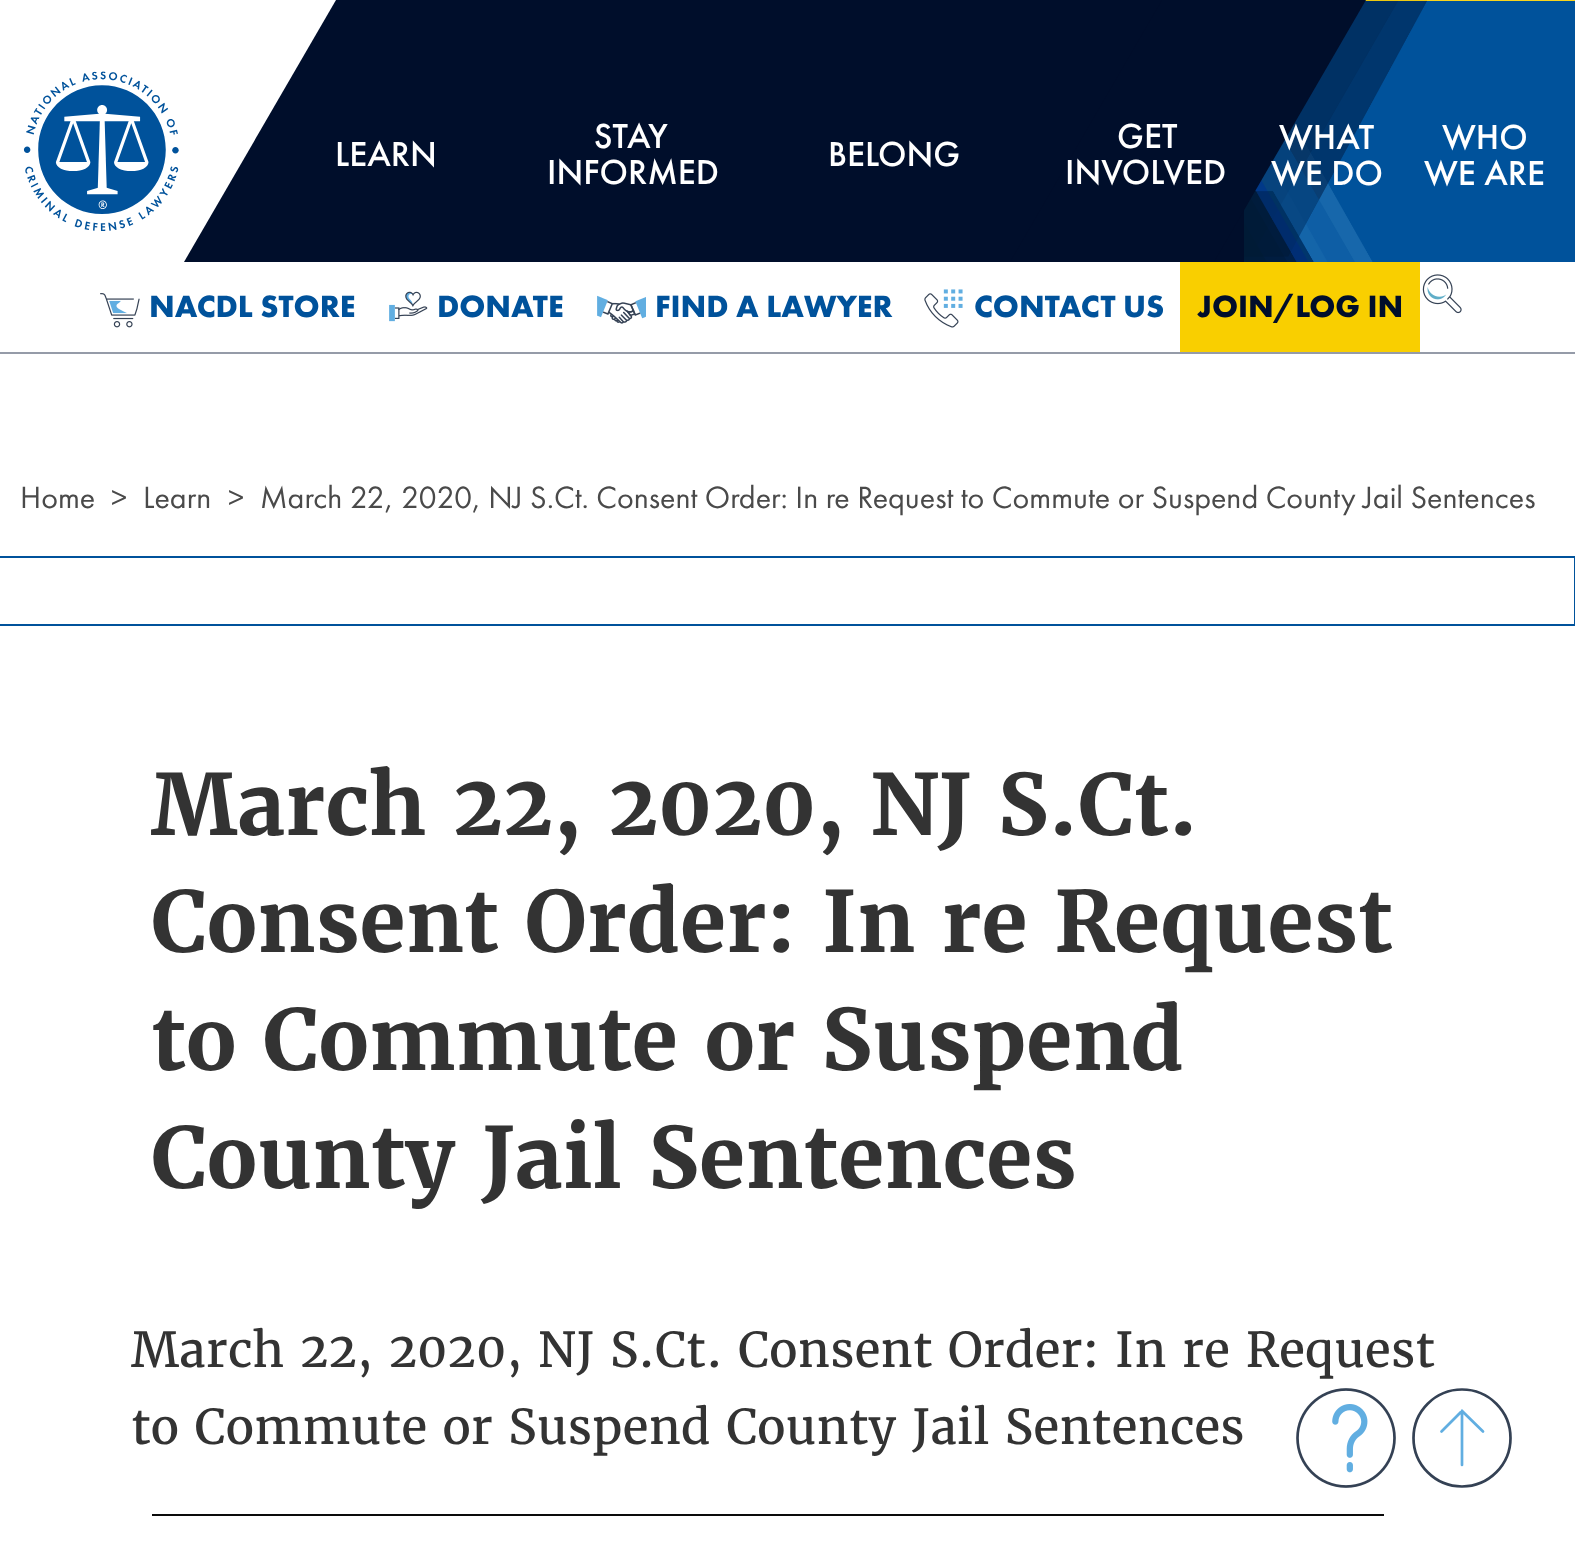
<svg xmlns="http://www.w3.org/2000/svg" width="1575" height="1552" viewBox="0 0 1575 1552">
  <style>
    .t1 { font: 500 36px Futura PT; fill: #fff; }
    .t2 { font: bold 32px Futura PT; fill: #00529b; }
    .t3 { font: bold 32px Futura PT; fill: #000e2b; }
    .t4 { font: 32px Futura PT; fill: #4a4a4a; }
    .t5 { font: bold 84px Merriweather; fill: #333; }
    .t6 { font: 48px Merriweather; fill: #333; }
  </style>
  <rect width="100%" height="100%" fill="#fff"/>
  <rect x="0" y="352" width="1575" height="2" fill="#959ba8"/>
  <rect x="184" y="0" width="1060" height="262" fill="#000e2b"/>
  <path d="M36 0H336L184 262H-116Z" fill="#fff"/>
  <image x="23" y="71" width="156" height="160" href="images/1.png"/>
  <text x="335" y="166" class="t1">LEARN</text>
  <text x="594" y="148" class="t1">STAY</text>
  <text x="547" y="184" class="t1">INFORMED</text>
  <text x="828" y="166" class="t1">BELONG</text>
  <image x="1244" y="0" width="331" height="262" href="images/2.png"/>
  <path d="M1162 0H1366L1214 262H1010Z" fill="#000e2b"/>
  <text x="1117" y="148" class="t1">GET</text>
  <text x="1065" y="184" class="t1">INVOLVED</text>
  <text x="1279" y="149" class="t1">WHAT</text>
  <text x="1271" y="185" class="t1">WE DO</text>
  <text x="1442" y="149" class="t1">WHO</text>
  <text x="1424" y="185" class="t1">WE ARE</text>
  <image x="100" y="293" width="40" height="35" href="images/3.png"/>
  <text x="149" y="317" class="t2">NACDL STORE</text>
  <image x="389" y="291" width="39" height="31" href="images/4.png"/>
  <text x="437" y="317" class="t2">DONATE</text>
  <image x="597" y="295" width="49" height="29" href="images/5.png"/>
  <text x="655" y="317" class="t2">FIND A LAWYER</text>
  <image x="924" y="289" width="39" height="39" href="images/6.png"/>
  <text x="974" y="317" class="t2">CONTACT US</text>
  <rect x="1180" y="262" width="240" height="90" fill="#f9cf00"/>
  <text x="1197" y="317" class="t3">JOIN/LOG IN</text>
  <image x="1422" y="274" width="40" height="40" href="images/7.png"/>
  <text x="20" y="508" class="t4">Home</text>
  <text x="111" y="508" class="t4">&gt;</text>
  <text x="143" y="508" class="t4">Learn</text>
  <text x="228" y="508" class="t4">&gt;</text>
  <text x="260" y="508" class="t4">March 22, 2020, NJ S.Ct. Consent Order: In re Request to Commute or Suspend County Jail Sentences</text>
  <rect x="0" y="556" width="1575" height="2" fill="#00529b"/>
  <rect x="1574" y="556" width="1" height="70" fill="#00529b"/>
  <rect x="0" y="624" width="1575" height="2" fill="#00529b"/>
  <text x="151" y="835" class="t5">March 22, 2020, NJ S.Ct.</text>
  <text x="151" y="952" class="t5">Consent Order: In re Request</text>
  <text x="151" y="1070" class="t5">to Commute or Suspend</text>
  <text x="151" y="1188" class="t5">County Jail Sentences</text>
  <text x="131" y="1367" class="t6">March 22, 2020, NJ S.Ct. Consent Order: In re Request</text>
  <text x="131" y="1444" class="t6">to Commute or Suspend County Jail Sentences</text>
  <rect x="152" y="1514" width="1232" height="2" fill="#0a0a0a"/>
  <image x="1296" y="1388" width="100" height="100" href="images/8.png"/>
  <circle cx="1462" cy="1438" r="48.5" fill="none" stroke="#344154" stroke-width="2.7"/>
  <path d="M1483 1431.5L1462 1411L1441.5 1431.5M1462 1411V1465" fill="none" stroke="#61aee1" stroke-width="2.7" stroke-linecap="round"/>
</svg>
